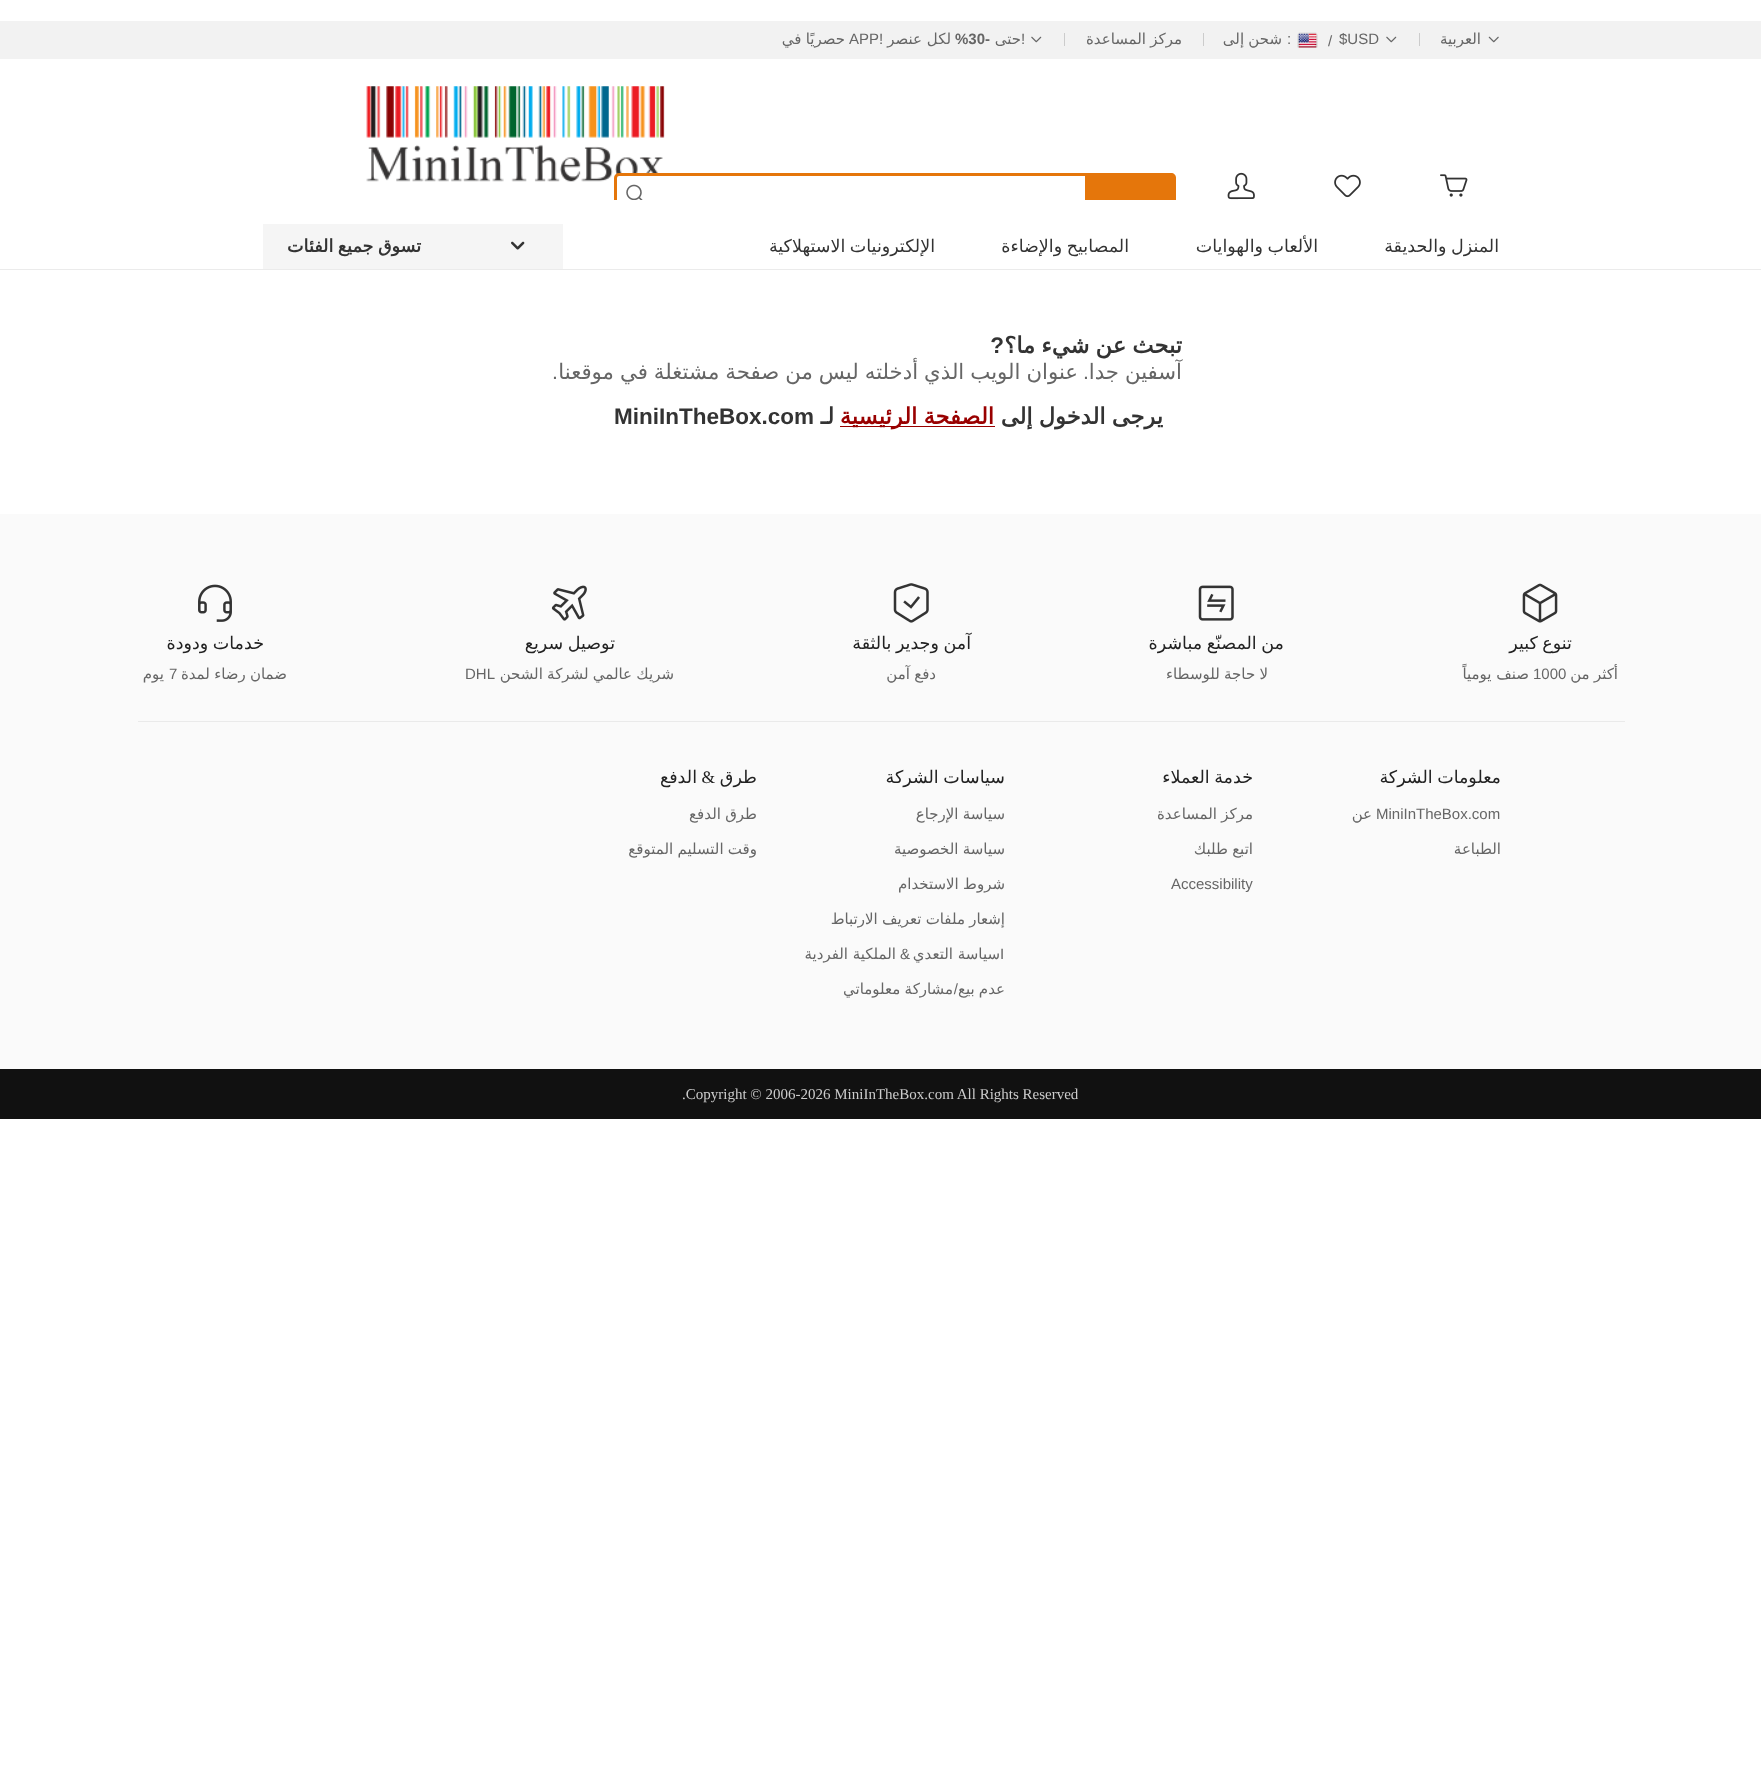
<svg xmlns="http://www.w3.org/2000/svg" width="1761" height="1772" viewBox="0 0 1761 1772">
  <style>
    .t1 { font: 15px DejaVu Sans; direction: rtl; fill: #666; }
    .t2 { font: 15px Liberation Sans; fill: #666; }
    .t3 { font: bold 15px Liberation Sans; fill: #666; }
    .t4 { font: 17.5px DejaVu Sans; direction: rtl; fill: #333; }
    .t5 { font: bold 17.5px DejaVu Sans; direction: rtl; fill: #333; }
    .t6 { font: bold 22.5px DejaVu Sans; direction: rtl; fill: #333; }
    .t7 { font: bold 22.5px Liberation Sans; direction: rtl; fill: #333; }
    .t8 { font: 21.25px DejaVu Sans; direction: rtl; fill: #666; }
    .t9 { font: 21.25px Liberation Sans; direction: rtl; fill: #666; }
    .t10 { font: bold 22.5px DejaVu Sans; direction: rtl; fill: #900; }
    .t11 { font: bold 22.5px Liberation Sans; fill: #333; }
    .t12 { font: 17.5px DejaVu Sans; direction: rtl; fill: #222; }
    .t13 { font: 15px Liberation Sans; direction: rtl; fill: #666; }
    .t14 { font: 17.5px Liberation Serif; direction: rtl; fill: #222; }
    .t15 { font: 15px Liberation Serif; fill: #ccc; }
  </style>
  <rect width="100%" height="100%" fill="#fff"/>
  <rect x="0" y="21" width="1761" height="38" fill="#f2f2f2"/>
  <image x="1488" y="36" width="11" height="7" href="images/1.png"/>
  <text x="1481" y="44" class="t1">العربية</text>
  <rect x="1419" y="33" width="1" height="13" fill="#ccc"/>
  <image x="1386" y="36" width="11" height="7" href="images/2.png"/>
  <text x="1339" y="44" class="t2">$USD</text>
  <text x="1328" y="46" class="t2">/</text>
  <image x="1297" y="32" width="21" height="16" href="images/3.png"/>
  <text x="1287" y="44" class="t2">:</text>
  <text x="1282" y="44" word-spacing="-0.5" class="t1">شحن إلى</text>
  <rect x="1203" y="33" width="1" height="13" fill="#ccc"/>
  <text x="1182" y="44" word-spacing="-0.5" class="t1">مركز المساعدة</text>
  <rect x="1064" y="33" width="1" height="13" fill="#ccc"/>
  <image x="1031" y="36" width="11" height="7" href="images/2.png"/>
  <text x="1021" y="44" class="t2">!</text>
  <text x="1021" y="44" class="t1">حتى</text>
  <text x="955" y="44" class="t3">%30-</text>
  <text x="951" y="44" class="t1">لكل عنصر</text>
  <text x="849" y="44" class="t2">APP!</text>
  <text x="845" y="44" word-spacing="-0.5" class="t1">حصريًا في</text>
  <image x="366" y="86" width="299" height="96" href="images/4.png"/>
  <image x="1440" y="174" width="28" height="23" href="images/5.png"/>
  <image x="1334" y="174" width="27" height="24" href="images/6.png"/>
  <image x="1227" y="172" width="28" height="28" href="images/7.png"/>
  <path d="M1088 173H1171C1174 173 1176 175 1176 178V213C1176 216 1174 218 1171 218H1088Z" fill="#e5760b"/>
  <path d="M619 174.5H1086.5V216.5H619C617 216.5 615.5 215 615.5 213V178C615.5 176 617 174.5 619 174.5Z" fill="#fff" stroke="#e5760b" stroke-width="3"/>
  <image x="626" y="184" width="17" height="16" href="images/8.png"/>
  <rect x="0" y="269" width="1761" height="1" fill="#ebebeb"/>
  <path d="M267 200H1496C1498 200 1500 202 1500 204V269H263V204C263 202 265 200 267 200Z" fill="#fff"/>
  <text x="1499" y="252" word-spacing="-1" class="t4">المنزل والحديقة</text>
  <text x="1318" y="252" word-spacing="-1" class="t4">الألعاب والهوايات</text>
  <text x="1129" y="252" word-spacing="-1" class="t4">المصابيح والإضاءة</text>
  <text x="935" y="252" word-spacing="-1" class="t4">الإلكترونيات الاستهلاكية</text>
  <rect x="263" y="224" width="300" height="45" fill="#f5f5f5"/>
  <image x="511" y="241" width="14" height="9" href="images/9.png"/>
  <text x="421" y="252" word-spacing="-1" class="t5">تسوق جميع الفئات</text>
  <text x="1182" y="353" word-spacing="-1" class="t6">تبحث عن شيء ما؟</text>
  <text x="1004" y="353" class="t7">?</text>
  <text x="1182" y="379" word-spacing="-0.75" class="t8">آسفين جدا</text>
  <text x="1089" y="379" class="t9">.</text>
  <text x="1078" y="379" word-spacing="-0.75" class="t8">عنوان الويب الذي أدخلته ليس من صفحة مشتغلة في موقعنا</text>
  <text x="558" y="379" class="t9">.</text>
  <text x="1163" y="424" word-spacing="-1" class="t6">يرجى الدخول إلى</text>
  <rect x="840" y="426" width="155" height="1" fill="#900"/>
  <text x="994" y="424" word-spacing="-1" class="t10">الصفحة الرئيسية</text>
  <text x="834" y="424" class="t6">لـ</text>
  <text x="614" y="424" class="t11">MiniInTheBox.com</text>
  <rect x="0" y="514" width="1761" height="555" fill="#fafafa"/>
  <rect x="138" y="721" width="1487" height="1" fill="#eaeaea"/>
  <image x="1522" y="583" width="36" height="40" href="images/10.png"/>
  <text x="1572" y="649" word-spacing="-1" class="t12">تنوع كبير</text>
  <text x="1618" y="679" word-spacing="-0.5" class="t1">أكثر من</text>
  <text x="1533" y="679" class="t2">1000</text>
  <text x="1529" y="679" class="t1">صنف يومياً</text>
  <image x="1198" y="585" width="36" height="36" href="images/11.png"/>
  <text x="1284" y="649" word-spacing="-1" class="t12">من المصنّع مباشرة</text>
  <text x="1268" y="679" word-spacing="-0.5" class="t1">لا حاجة للوسطاء</text>
  <image x="893" y="583" width="36" height="40" href="images/12.png"/>
  <text x="971" y="649" word-spacing="-1" class="t12">آمن وجدير بالثقة</text>
  <text x="936" y="679" word-spacing="-0.5" class="t1">دفع آمن</text>
  <image x="551" y="585" width="36" height="36" href="images/13.png"/>
  <text x="615" y="649" word-spacing="-1" class="t12">توصيل سريع</text>
  <text x="674" y="679" word-spacing="-0.5" class="t1">شريك عالمي لشركة الشحن</text>
  <text x="465" y="679" class="t2">DHL</text>
  <image x="198" y="584" width="34" height="38" href="images/14.png"/>
  <text x="264" y="649" word-spacing="-1" class="t12">خدمات ودودة</text>
  <text x="287" y="679" word-spacing="-0.5" class="t1">ضمان رضاء لمدة</text>
  <text x="169" y="679" class="t2">7</text>
  <text x="164" y="679" class="t1">يوم</text>
  <text x="1501" y="783" word-spacing="-1" class="t12">معلومات الشركة</text>
  <text x="1376" y="819" class="t2">MiniInTheBox.com</text>
  <text x="1372" y="819" class="t1">عن</text>
  <text x="1501" y="854" class="t1">الطباعة</text>
  <text x="1253" y="783" word-spacing="-1" class="t12">خدمة العملاء</text>
  <text x="1253" y="819" word-spacing="-0.5" class="t1">مركز المساعدة</text>
  <text x="1253" y="854" word-spacing="-0.5" class="t1">اتبع طلبك</text>
  <text x="1171" y="889" class="t2">Accessibility</text>
  <text x="1005" y="783" word-spacing="-1" class="t12">سياسات الشركة</text>
  <text x="1005" y="819" word-spacing="-0.5" class="t1">سياسة الإرجاع</text>
  <text x="1005" y="854" word-spacing="-0.5" class="t1">سياسة الخصوصية</text>
  <text x="1005" y="889" word-spacing="-0.5" class="t1">شروط الاستخدام</text>
  <text x="1005" y="924" word-spacing="-0.5" class="t1">إشعار ملفات تعريف الارتباط</text>
  <text x="1000" y="959" class="t2">I</text>
  <text x="1000" y="959" class="t1">سياسة التعدي</text>
  <text x="910" y="959" class="t13">&amp;</text>
  <text x="896" y="959" class="t1">الملكية الفردية</text>
  <text x="1005" y="994" word-spacing="-0.5" class="t1">عدم بيع</text>
  <text x="958" y="994" class="t13">/</text>
  <text x="953" y="994" word-spacing="-0.5" class="t1">مشاركة معلوماتي</text>
  <text x="757" y="783" class="t12">طرق</text>
  <text x="715" y="783" class="t14">&amp;</text>
  <text x="697" y="783" class="t12">الدفع</text>
  <text x="757" y="819" word-spacing="-0.5" class="t1">طرق الدفع</text>
  <text x="757" y="854" word-spacing="-0.5" class="t1">وقت التسليم المتوقع</text>
  <rect x="0" y="1069" width="1761" height="50" fill="#111"/>
  <text x="682" y="1099" class="t15">.Copyright © 2006-2026 MiniInTheBox.com All Rights Reserved</text>
</svg>
